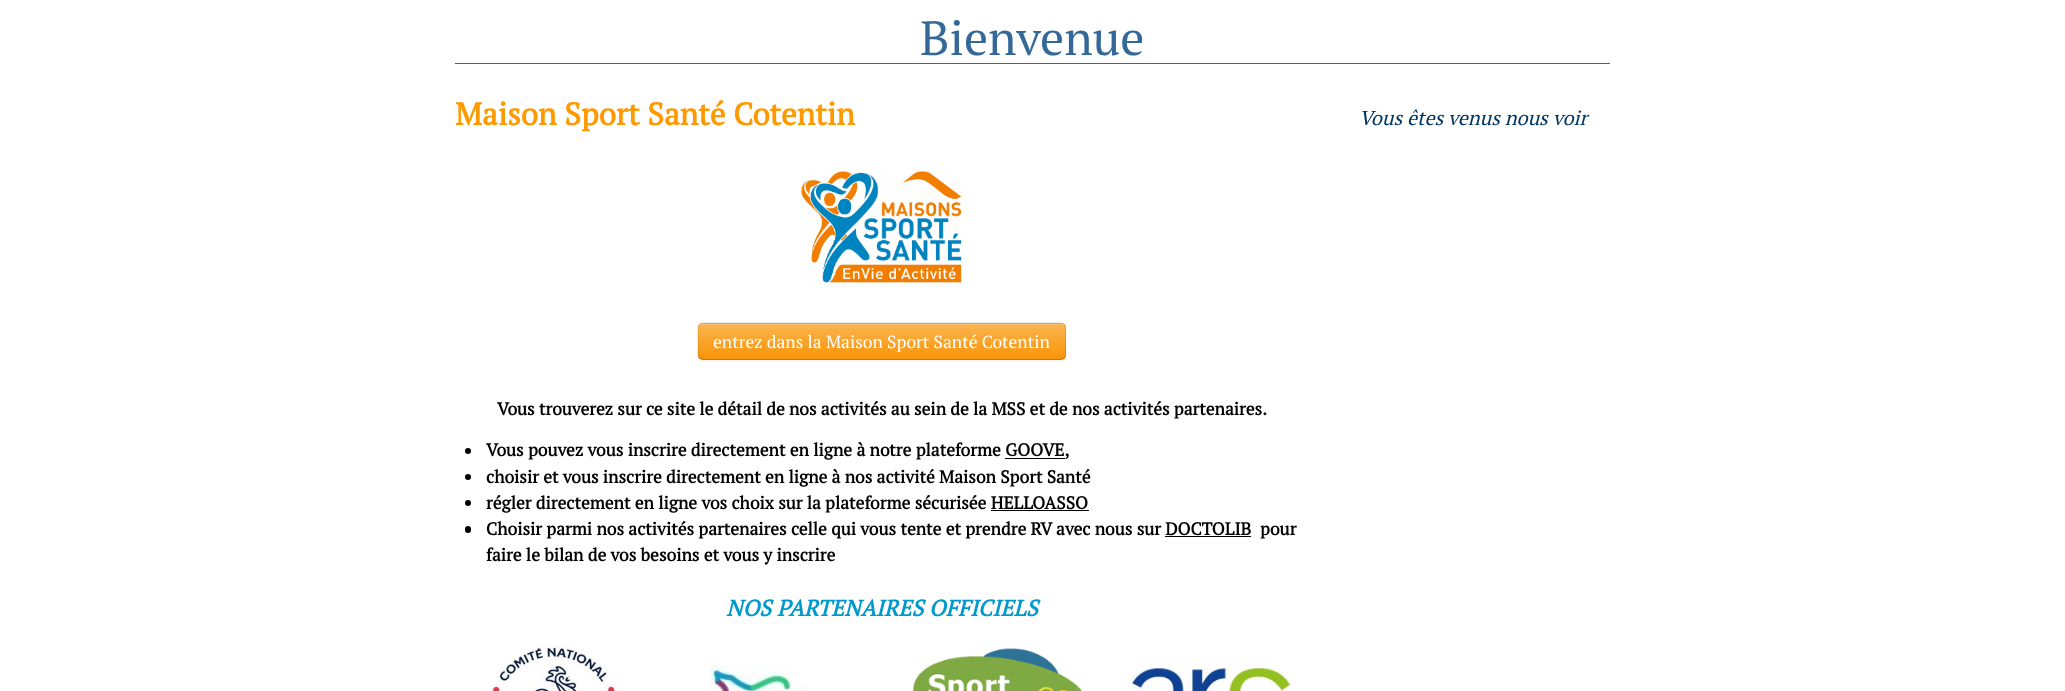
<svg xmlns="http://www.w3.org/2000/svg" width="2065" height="691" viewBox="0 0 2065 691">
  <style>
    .t1 { font: 48px PT Serif; fill: #336899; }
    .t2 { font: bold 31.25px PT Serif; fill: #f90; }
    .t3 { font: 17.5px PT Serif; fill: #fff; }
    .t4 { font: bold 17.5px PT Serif; fill: #000; }
    .t5 { font: italic bold 22.5px PT Serif; fill: #09c; }
    .t6 { font: italic 20px PT Serif; fill: #003566; }
  </style>
  <defs>
    <clipPath id="clip1"><rect x="698" y="323" width="368" height="37" rx="5"/></clipPath>
    <linearGradient id="g1" gradientUnits="userSpaceOnUse" x1="882" y1="324" x2="882" y2="359"><stop offset="0" stop-color="#fbb450"/><stop offset="1" stop-color="#f89406"/></linearGradient>
  </defs>
  <rect width="100%" height="100%" fill="#fff"/>
  <rect x="455" y="63" width="1155" height="1" fill="#336899"/>
  <text x="920" y="55" class="t1">Bienvenue</text>
  <text x="455" y="125" class="t2">Maison Sport Santé Cotentin</text>
  <image x="801" y="171" width="161" height="112" href="images/1.png"/>
  <rect x="698" y="324" width="368" height="37" rx="5" fill="#0000000d" filter="blur(1px)"/>
  <rect x="698" y="323" width="368" height="37" rx="5" fill="#faa732"/>
  <g clip-path="url(#clip1)">
    <rect x="698" y="324" width="368" height="35" fill="url(#g1)"/>
  </g>
  <path d="M702 325H1061C1063 325 1065 327 1065 329C1065 326 1064 324 1061 324H702L700 326L699 329C699 327 700 325 702 325Z" fill="#ffffff33"/>
  <path d="M1064.5 358L1061 359.5H702.5L699.5 358" fill="none" stroke="#00000040" stroke-width="1.2"/>
  <path d="M699.5 358C698.5 357.5 698 356 698 355V327.5C698 326.5 698.5 325 699.5 324.5C700 323.5 701.5 323 702.5 323H1061C1062.5 323 1063.5 323.5 1064.5 324.5C1065 325 1065.5 326.5 1065.5 327.5V355C1065.5 356 1065 357.5 1064.5 358" fill="none" stroke="#0000001a" stroke-width="1.2"/>
  <text x="713" y="348" class="t3">entrez dans la Maison Sport Santé Cotentin</text>
  <text x="497" y="415" class="t4">Vous trouverez sur ce site le détail de nos activités au sein de la MSS et de nos activités partenaires.</text>
  <circle cx="468" cy="451" r="3" fill="#000"/>
  <text x="486" y="456" class="t4">Vous pouvez vous inscrire directement en ligne à notre plateforme GOOVE,</text>
  <rect x="1005" y="458" width="60" height="1" fill="#000"/>
  <circle cx="468" cy="477" r="3" fill="#000"/>
  <text x="486" y="483" class="t4">choisir et vous inscrire directement en ligne à nos activité Maison Sport Santé</text>
  <circle cx="468" cy="503" r="3" fill="#000"/>
  <text x="486" y="509" class="t4">régler directement en ligne vos choix sur la plateforme sécurisée HELLOASSO</text>
  <rect x="991" y="510" width="98" height="1" fill="#000"/>
  <rect x="465" y="526" width="6" height="7" rx="3" fill="#000"/>
  <text x="486" y="535" class="t4">Choisir parmi nos activités partenaires celle qui vous tente et prendre RV avec nous sur DOCTOLIB</text>
  <rect x="1165" y="536" width="86" height="1" fill="#000"/>
  <text x="1260" y="535" class="t4">pour</text>
  <text x="486" y="561" class="t4">faire le bilan de vos besoins et vous y inscrire</text>
  <text x="726" y="616" class="t5">NOS PARTENAIRES OFFICIELS</text>
  <image x="489" y="645" width="127" height="46" href="images/2.png"/>
  <image x="710" y="664" width="99" height="27" href="images/3.png"/>
  <image x="912" y="648" width="170" height="43" href="images/4.png"/>
  <image x="1128" y="667" width="163" height="24" href="images/5.png"/>
  <text x="1359" y="125" class="t6">Vous êtes venus nous voir</text>
</svg>
